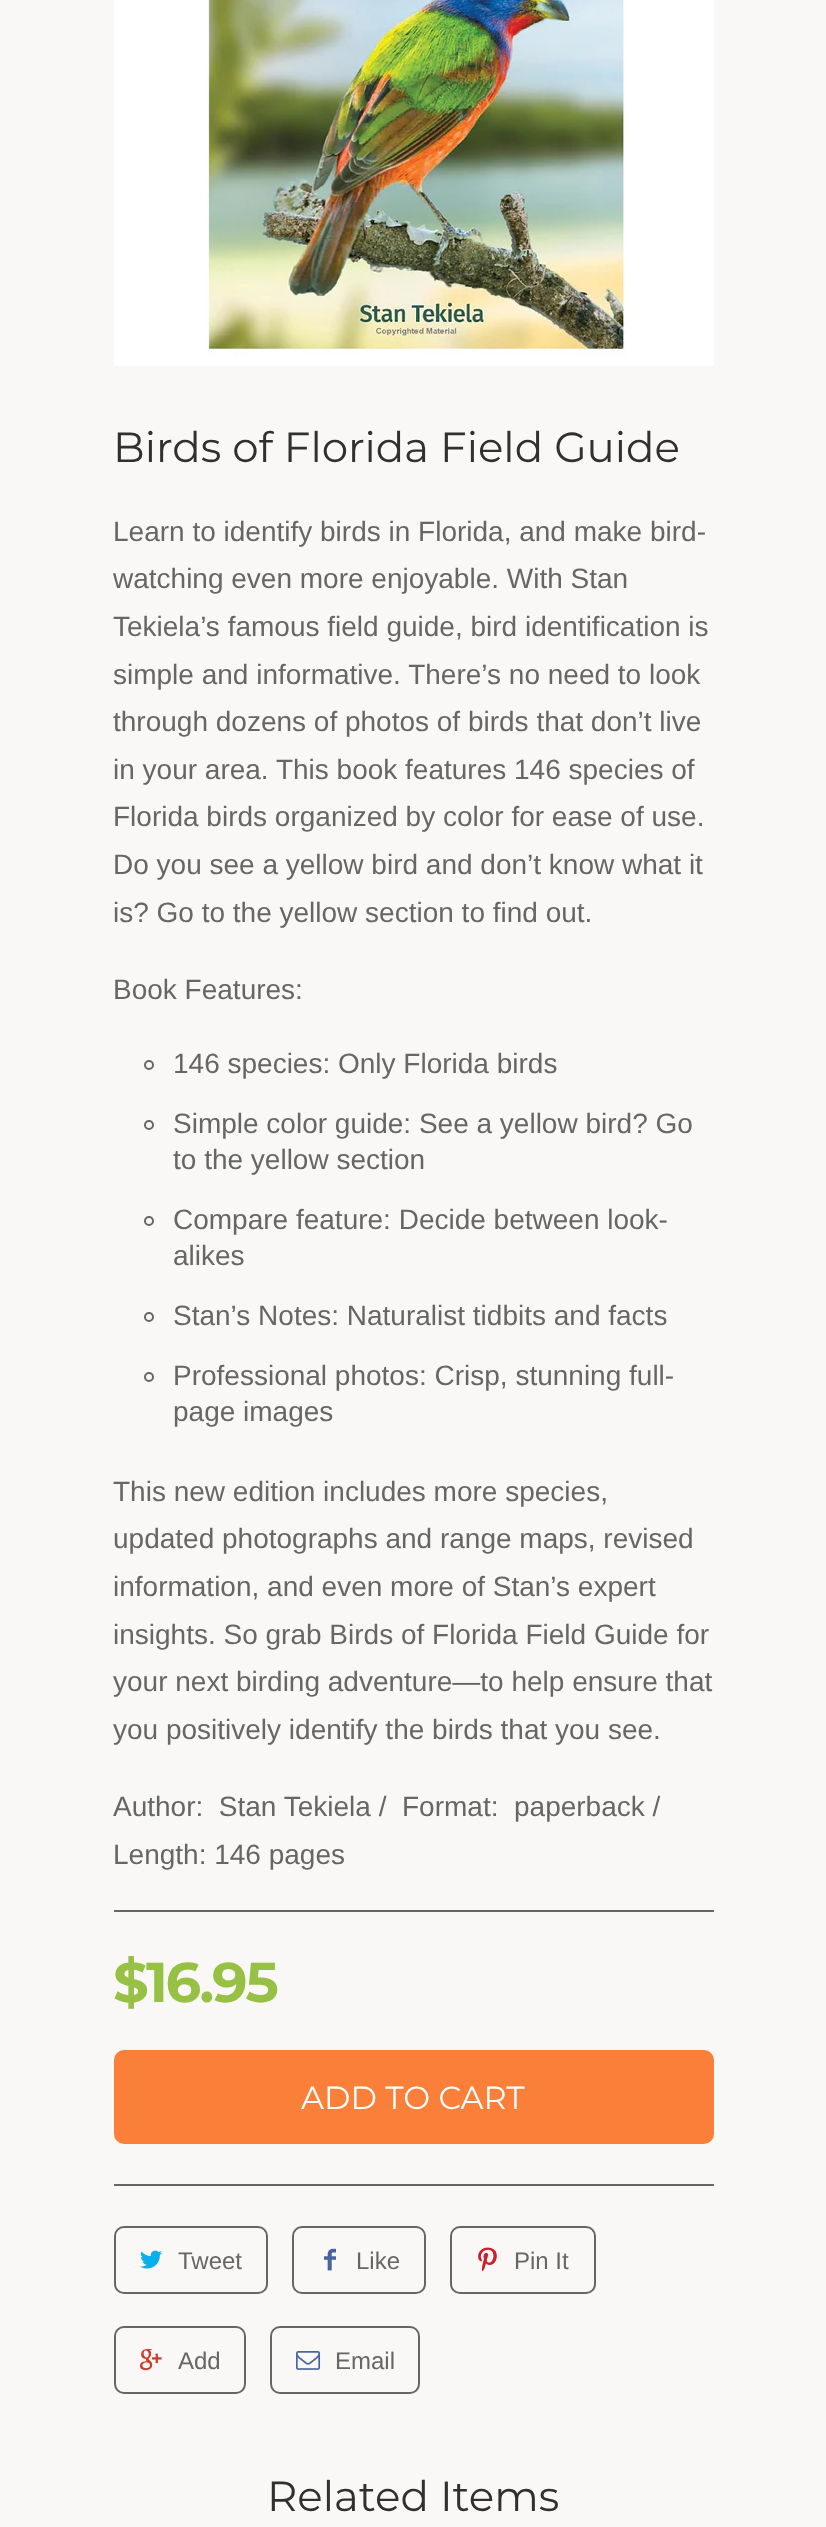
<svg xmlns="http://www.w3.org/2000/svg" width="826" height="2527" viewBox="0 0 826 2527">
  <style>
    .t1 { font: 42px Montserrat; fill: #303030; }
    .t2 { font: 28px Liberation Sans; fill: #666; }
    .t3 { font: bold 56px Montserrat; letter-spacing: -2.25px; fill: #97c145; }
    .t4 { font: 32px Montserrat; fill: #fff; }
    .t5 { font: 24px Liberation Sans; fill: #666; }
  </style>
  <rect width="100%" height="100%" fill="#f9f8f6"/>
  <image x="114" y="0" width="600" height="366" href="images/1.png"/>
  <text x="113" y="462" class="t1">Birds of Florida Field Guide</text>
  <text x="113" y="541" class="t2">Learn to identify birds in Florida, and make bird-</text>
  <text x="113" y="588" class="t2">watching even more enjoyable. With Stan</text>
  <text x="113" y="636" class="t2">Tekiela’s famous field guide, bird identification is</text>
  <text x="113" y="684" class="t2">simple and informative. There’s no need to look</text>
  <text x="113" y="731" class="t2">through dozens of photos of birds that don’t live</text>
  <text x="113" y="779" class="t2">in your area. This book features 146 species of</text>
  <text x="113" y="826" class="t2">Florida birds organized by color for ease of use.</text>
  <text x="113" y="874" class="t2">Do you see a yellow bird and don’t know what it</text>
  <text x="113" y="922" class="t2">is? Go to the yellow section to find out.</text>
  <text x="113" y="999" class="t2">Book Features:</text>
  <circle cx="149" cy="1065" r="4" fill="none" stroke="#666" stroke-width="2"/>
  <text x="173" y="1073" class="t2">146 species: Only Florida birds</text>
  <circle cx="149" cy="1125" r="4" fill="none" stroke="#666" stroke-width="2"/>
  <text x="173" y="1133" class="t2">Simple color guide: See a yellow bird? Go</text>
  <text x="173" y="1169" class="t2">to the yellow section</text>
  <circle cx="149" cy="1221" r="4" fill="none" stroke="#666" stroke-width="2"/>
  <text x="173" y="1229" class="t2">Compare feature: Decide between look-</text>
  <text x="173" y="1265" class="t2">alikes</text>
  <circle cx="149" cy="1317" r="4" fill="none" stroke="#666" stroke-width="2"/>
  <text x="173" y="1325" class="t2">Stan’s Notes: Naturalist tidbits and facts</text>
  <circle cx="149" cy="1377" r="4" fill="none" stroke="#666" stroke-width="2"/>
  <text x="173" y="1385" class="t2">Professional photos: Crisp, stunning full-</text>
  <text x="173" y="1421" class="t2">page images</text>
  <text x="113" y="1501" class="t2">This new edition includes more species,</text>
  <text x="113" y="1548" class="t2">updated photographs and range maps, revised</text>
  <text x="113" y="1596" class="t2">information, and even more of Stan’s expert</text>
  <text x="113" y="1644" class="t2">insights. So grab Birds of Florida Field Guide for</text>
  <text x="113" y="1691" class="t2">your next birding adventure—to help ensure that</text>
  <text x="113" y="1739" class="t2">you positively identify the birds that you see.</text>
  <text x="113" y="1816" class="t2" xml:space="preserve">Author:  Stan Tekiela /  Format:  paperback /</text>
  <text x="113" y="1864" class="t2">Length: 146 pages</text>
  <rect x="114" y="1910" width="600" height="2" fill="#666"/>
  <text x="113" y="2002" class="t3">$16.95</text>
  <rect x="114" y="2050" width="600" height="94" rx="10" fill="#fa803a"/>
  <text x="301" y="2109" class="t4">ADD TO CART</text>
  <rect x="114" y="2184" width="600" height="2" fill="#666"/>
  <rect x="115" y="2227" width="152" height="66" rx="9" fill="none" stroke="#666" stroke-width="2"/>
  <image x="140" y="2250" width="22" height="19" href="images/2.png"/>
  <text x="178" y="2269" class="t5">Tweet</text>
  <rect x="293" y="2227" width="132" height="66" rx="9" fill="none" stroke="#666" stroke-width="2"/>
  <image x="324" y="2248" width="12" height="23" href="images/3.png"/>
  <text x="356" y="2269" class="t5">Like</text>
  <rect x="451" y="2227" width="144" height="66" rx="9" fill="none" stroke="#666" stroke-width="2"/>
  <image x="478" y="2247" width="19" height="25" href="images/4.png"/>
  <text x="514" y="2269" class="t5">Pin It</text>
  <rect x="115" y="2327" width="130" height="66" rx="9" fill="none" stroke="#666" stroke-width="2"/>
  <image x="140" y="2349" width="22" height="22" href="images/5.png"/>
  <text x="178" y="2369" class="t5">Add</text>
  <rect x="271" y="2327" width="148" height="66" rx="9" fill="none" stroke="#666" stroke-width="2"/>
  <image x="296" y="2351" width="25" height="19" href="images/6.png"/>
  <text x="335" y="2369" class="t5">Email</text>
  <text x="267" y="2511" class="t1">Related Items</text>
</svg>
